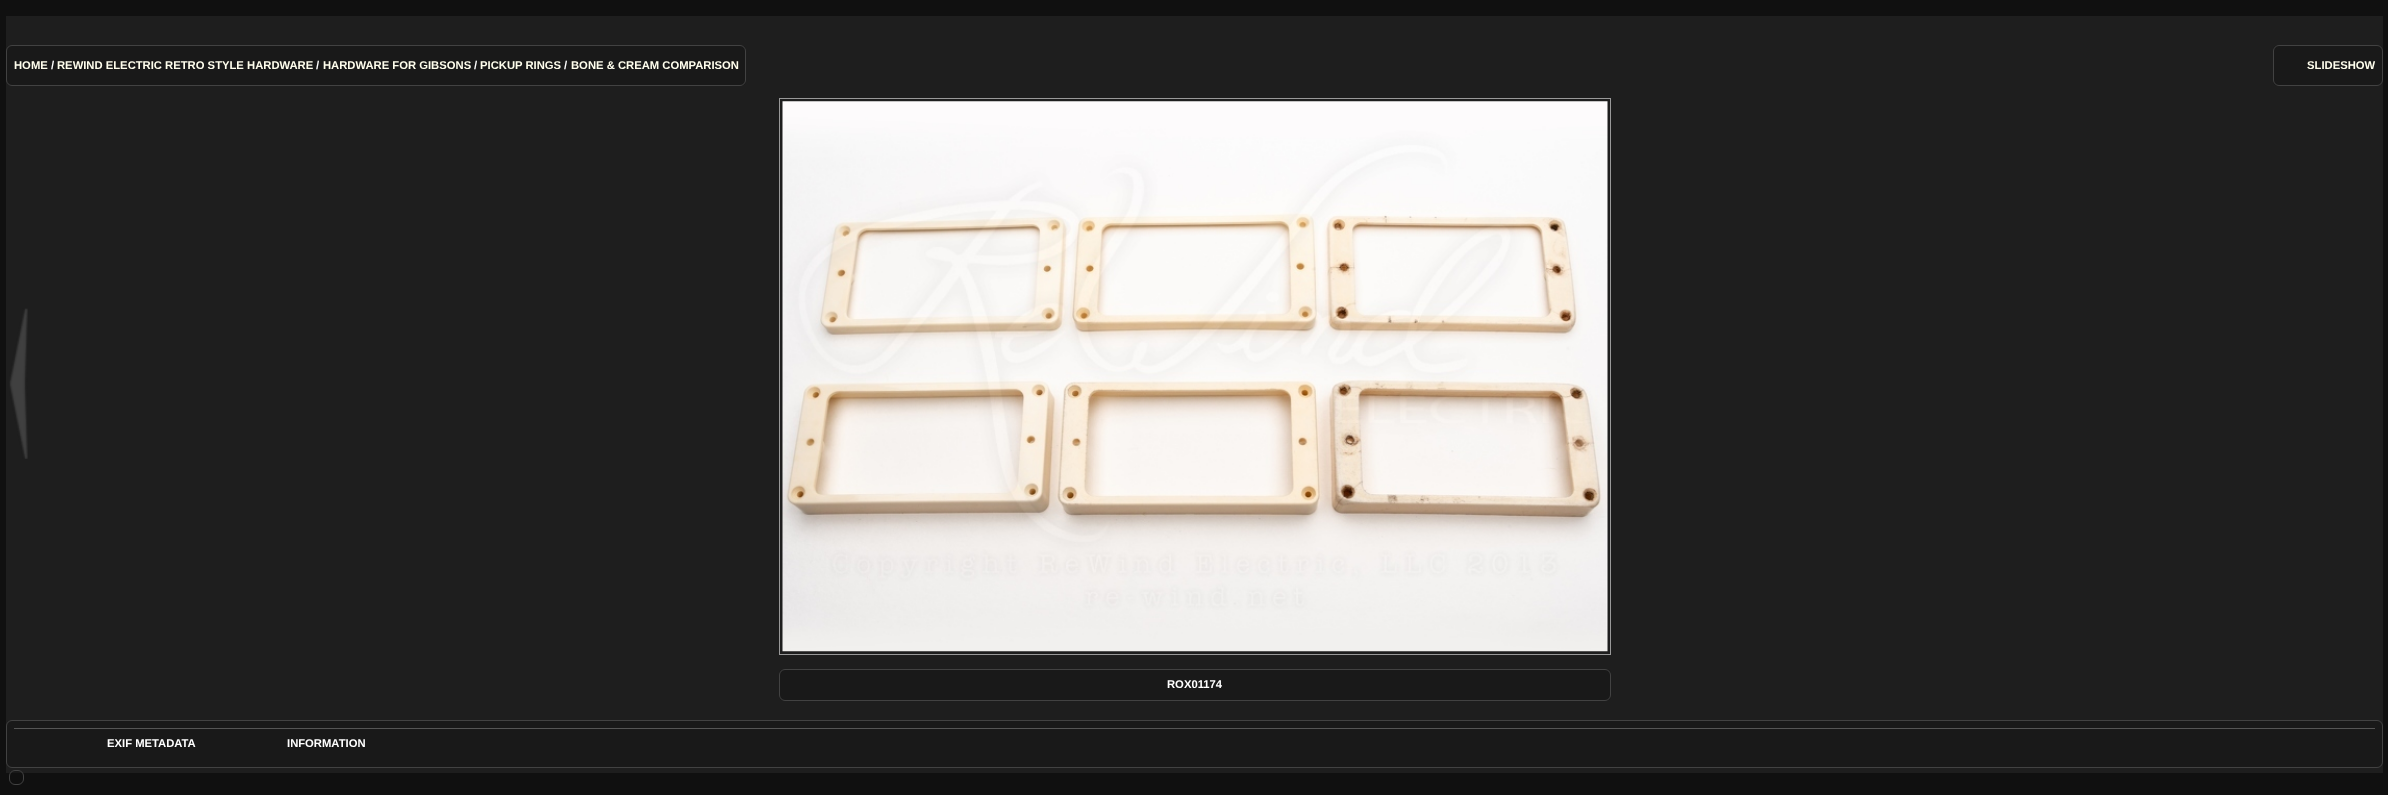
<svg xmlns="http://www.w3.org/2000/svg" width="2388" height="795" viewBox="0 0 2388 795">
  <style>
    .t1 { font: bold 11.25px Liberation Sans; fill: #fffeed; }
    .t2 { font: bold 11.25px Liberation Sans; fill: #fff; }
  </style>
  <rect width="100%" height="100%" fill="#101010"/>
  <rect x="6" y="16" width="2377" height="757" fill="#1e1e1e"/>
  <image x="7" y="45" width="739" height="41" href="images/1.png"/>
  <rect x="6.5" y="45.5" width="739" height="40" rx="5.5" fill="none" stroke="#424242"/>
  <text x="14" y="69" class="t1">HOME</text>
  <text x="51" y="69" class="t2">/</text>
  <text x="57" y="69" class="t1">REWIND ELECTRIC RETRO STYLE HARDWARE</text>
  <text x="316" y="69" class="t2">/</text>
  <text x="323" y="69" class="t1">HARDWARE FOR GIBSONS</text>
  <text x="474" y="69" class="t2">/</text>
  <text x="480" y="69" class="t1">PICKUP RINGS</text>
  <text x="564" y="69" class="t2">/</text>
  <text x="571" y="69" class="t1">BONE &amp; CREAM COMPARISON</text>
  <image x="2273" y="45" width="109" height="41" href="images/2.png"/>
  <rect x="2273.5" y="45.5" width="109" height="40" rx="5.5" fill="none" stroke="#424242"/>
  <text x="2307" y="69" class="t1">SLIDESHOW</text>
  <image x="9" y="308" width="19" height="151" href="images/3.png"/>
  <rect x="779.5" y="98.5" width="831" height="556" fill="none" stroke="#999"/>
  <image x="782" y="101" width="826" height="551" href="images/4.png"/>
  <image x="779" y="669" width="832" height="32" href="images/5.png"/>
  <rect x="779.5" y="669.5" width="831" height="31" rx="5.5" fill="none" stroke="#424242"/>
  <text x="1167" y="688" class="t2">ROX01174</text>
  <image x="7" y="720" width="2375" height="47" href="images/6.png"/>
  <rect x="6.5" y="720.5" width="2376" height="47" rx="5.5" fill="none" stroke="#424242"/>
  <rect x="14" y="728" width="2361" height="1" fill="#555"/>
  <text x="107" y="747" class="t2">EXIF METADATA</text>
  <text x="287" y="747" class="t2">INFORMATION</text>
  <image x="10" y="770" width="12" height="3" href="images/7.png"/>
  <rect x="9.5" y="770.5" width="14" height="14" rx="5.5" fill="none" stroke="#424242"/>
</svg>
